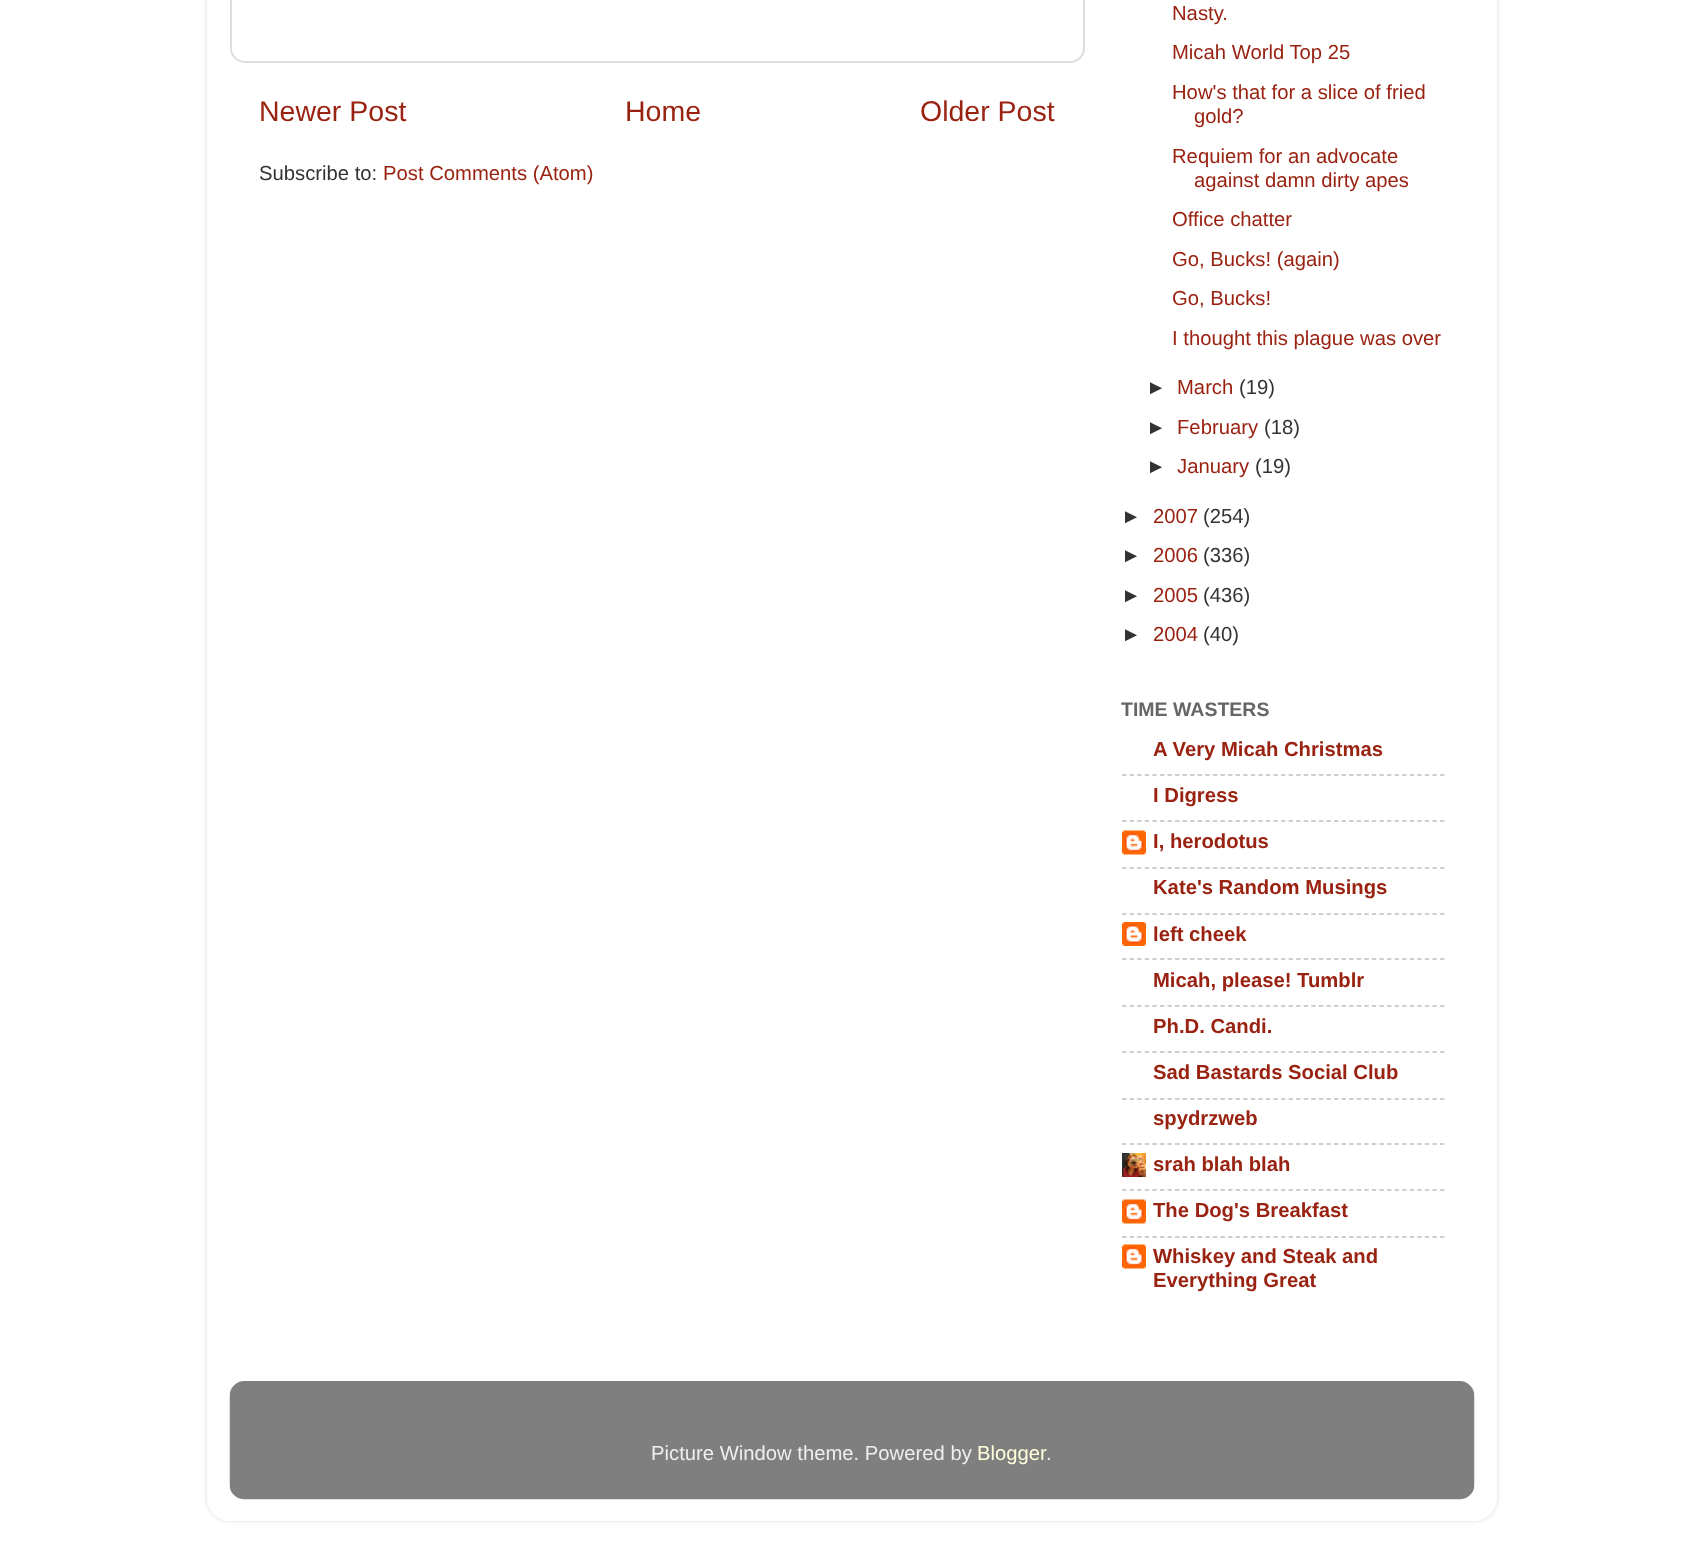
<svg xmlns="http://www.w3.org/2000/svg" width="1702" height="1567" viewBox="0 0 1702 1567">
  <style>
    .t1 { font: 28.5px Liberation Sans; fill: #921; }
    .t2 { font: 20.25px Liberation Sans; fill: #333; }
    .t3 { font: 20.25px Liberation Sans; fill: #921; }
    .t4 { font: bold 19.5px Liberation Sans; fill: #666; }
    .t5 { font: bold 20.25px Liberation Sans; fill: #921; }
    .t6 { font: 20.25px Liberation Sans; fill: #eee; }
    .t7 { font: 20.25px Liberation Sans; fill: #ffd; }
  </style>
  <defs>
    <clipPath id="clip1"><path d="M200 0H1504V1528H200ZM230-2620H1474C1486.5-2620 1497-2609.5 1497-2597V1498C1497 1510.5 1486.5 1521 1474 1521H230C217.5 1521 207 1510.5 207 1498V-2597C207-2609.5 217.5-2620 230-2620Z" clip-rule="evenodd"/></clipPath>
  </defs>
  <rect width="100%" height="100%" fill="#fff"/>
  <g clip-path="url(#clip1)">
    <rect x="207" y="-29" width="1290" height="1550" rx="23" fill="#00000026" filter="blur(2px)"/>
  </g>
  <rect x="231" y="-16" width="853" height="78" rx="14" fill="none" stroke="#ddd" stroke-width="2"/>
  <text x="259" y="121" class="t1">Newer Post</text>
  <text x="625" y="121" class="t1">Home</text>
  <text x="920" y="121" class="t1">Older Post</text>
  <text x="259" y="180" class="t2">Subscribe to:</text>
  <text x="383" y="180" class="t3">Post Comments (Atom)</text>
  <text x="1172" y="20" class="t3">Nasty.</text>
  <text x="1172" y="59" class="t3">Micah World Top 25</text>
  <text x="1172" y="99" class="t3">How's that for a slice of fried</text>
  <text x="1194" y="123" class="t3">gold?</text>
  <text x="1172" y="163" class="t3">Requiem for an advocate</text>
  <text x="1194" y="187" class="t3">against damn dirty apes</text>
  <text x="1172" y="226" class="t3">Office chatter</text>
  <text x="1172" y="266" class="t3">Go, Bucks! (again)</text>
  <text x="1172" y="305" class="t3">Go, Bucks!</text>
  <text x="1172" y="345" class="t3">I thought this plague was over</text>
  <text x="1146" y="394" class="t2">►</text>
  <text x="1177" y="394" class="t3">March</text>
  <text x="1239" y="394" class="t2">(19)</text>
  <text x="1146" y="434" class="t2">►</text>
  <text x="1177" y="434" class="t3">February</text>
  <text x="1264" y="434" class="t2">(18)</text>
  <text x="1146" y="473" class="t2">►</text>
  <text x="1177" y="473" class="t3">January</text>
  <text x="1255" y="473" class="t2">(19)</text>
  <text x="1121" y="523" class="t2">►</text>
  <text x="1153" y="523" class="t3">2007</text>
  <text x="1203" y="523" class="t2">(254)</text>
  <text x="1121" y="562" class="t2">►</text>
  <text x="1153" y="562" class="t3">2006</text>
  <text x="1203" y="562" class="t2">(336)</text>
  <text x="1121" y="602" class="t2">►</text>
  <text x="1153" y="602" class="t3">2005</text>
  <text x="1203" y="602" class="t2">(436)</text>
  <text x="1121" y="641" class="t2">►</text>
  <text x="1153" y="641" class="t3">2004</text>
  <text x="1203" y="641" class="t2">(40)</text>
  <text x="1121" y="716" class="t4">TIME WASTERS</text>
  <text x="1153" y="756" class="t5">A Very Micah Christmas</text>
  <path d="M1122 775H1444.5" fill="none" stroke="#c0c0c0" stroke-width="1.5" stroke-dasharray="4.5 3.07"/>
  <text x="1153" y="802" class="t5">I Digress</text>
  <path d="M1122 821H1444.5" fill="none" stroke="#c0c0c0" stroke-width="1.5" stroke-dasharray="4.5 3.07"/>
  <image x="1122" y="830" width="24" height="25" href="images/1.png"/>
  <text x="1153" y="848" class="t5">I, herodotus</text>
  <path d="M1122 868H1444.5" fill="none" stroke="#c0c0c0" stroke-width="1.5" stroke-dasharray="4.5 3.07"/>
  <text x="1153" y="894" class="t5">Kate's Random Musings</text>
  <path d="M1122 914H1444.5" fill="none" stroke="#c0c0c0" stroke-width="1.5" stroke-dasharray="4.5 3.07"/>
  <image x="1122" y="922" width="24" height="24" href="images/2.png"/>
  <text x="1153" y="941" class="t5">left cheek</text>
  <path d="M1122 959H1444.5" fill="none" stroke="#c0c0c0" stroke-width="1.5" stroke-dasharray="4.5 3.07"/>
  <text x="1153" y="987" class="t5">Micah, please! Tumblr</text>
  <path d="M1122 1006H1444.5" fill="none" stroke="#c0c0c0" stroke-width="1.5" stroke-dasharray="4.5 3.07"/>
  <text x="1153" y="1033" class="t5">Ph.D. Candi.</text>
  <path d="M1122 1052H1444.5" fill="none" stroke="#c0c0c0" stroke-width="1.5" stroke-dasharray="4.5 3.07"/>
  <text x="1153" y="1079" class="t5">Sad Bastards Social Club</text>
  <path d="M1122 1099H1444.5" fill="none" stroke="#c0c0c0" stroke-width="1.5" stroke-dasharray="4.5 3.07"/>
  <text x="1153" y="1125" class="t5">spydrzweb</text>
  <path d="M1122 1144H1444.5" fill="none" stroke="#c0c0c0" stroke-width="1.5" stroke-dasharray="4.5 3.07"/>
  <image x="1122" y="1153" width="24" height="24" href="images/3.png"/>
  <text x="1153" y="1171" class="t5">srah blah blah</text>
  <path d="M1122 1190H1444.5" fill="none" stroke="#c0c0c0" stroke-width="1.5" stroke-dasharray="4.5 3.07"/>
  <image x="1122" y="1199" width="24" height="25" href="images/1.png"/>
  <text x="1153" y="1217" class="t5">The Dog's Breakfast</text>
  <path d="M1122 1237H1444.5" fill="none" stroke="#c0c0c0" stroke-width="1.5" stroke-dasharray="4.5 3.07"/>
  <image x="1122" y="1244" width="24" height="25" href="images/1.png"/>
  <text x="1153" y="1263" class="t5">Whiskey and Steak and</text>
  <text x="1153" y="1287" class="t5">Everything Great</text>
  <image x="229" y="1381" width="1246" height="119" href="images/4.png"/>
  <text x="651" y="1460" class="t6">Picture Window theme. Powered by</text>
  <text x="977" y="1460" class="t7">Blogger</text>
  <text x="1046" y="1460" class="t6">.</text>
</svg>
